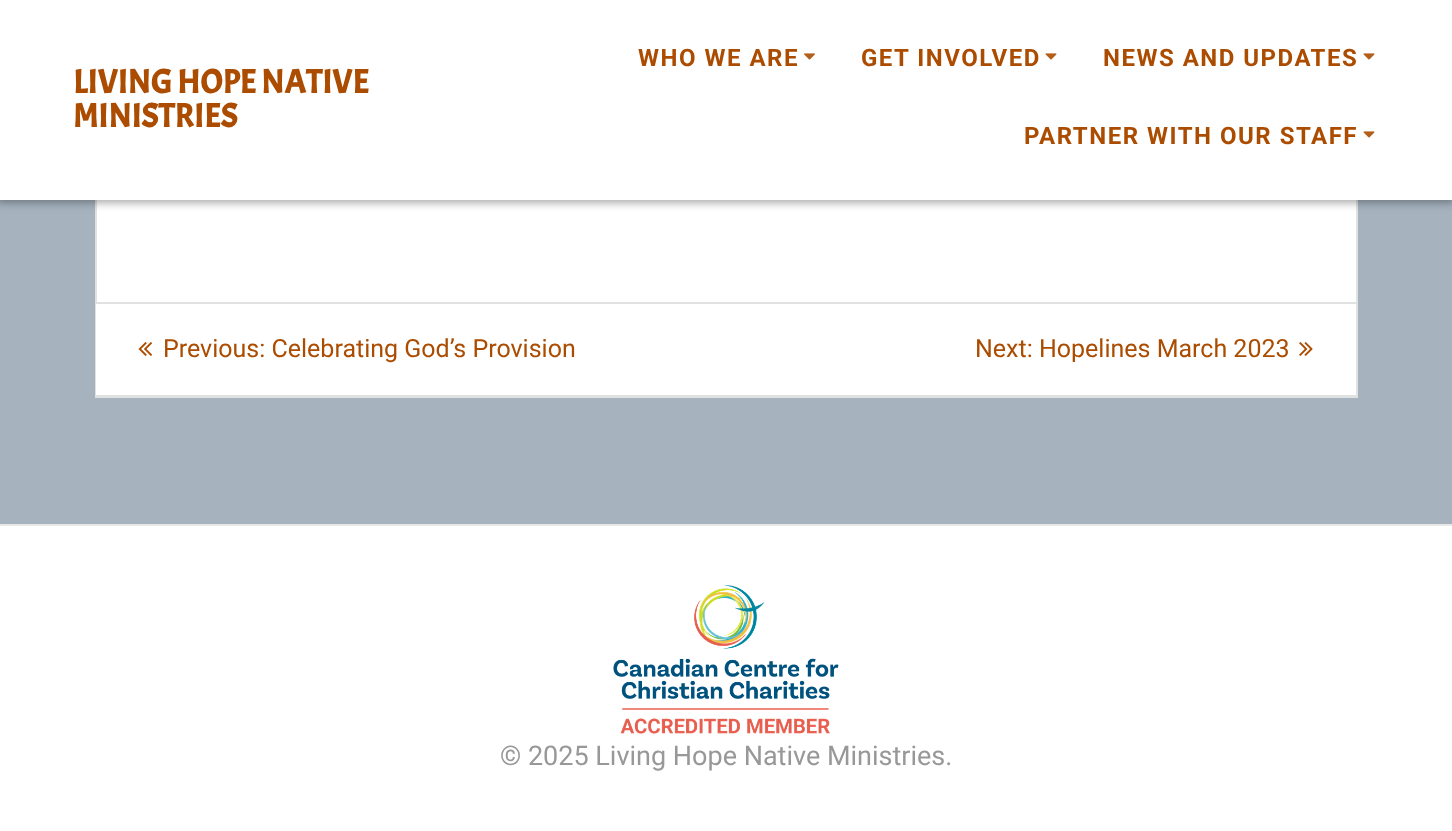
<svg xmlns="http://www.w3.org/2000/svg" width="1452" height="831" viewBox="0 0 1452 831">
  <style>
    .t1 { font: bold 33.5px Acme; fill: #ab4c00; }
    .t2 { font: bold 24px Roboto; letter-spacing: 1.5px; fill: #ab4c00; }
    .t3 { font: 25px Roboto; fill: #ab4c00; }
    .t4 { font: 27px Roboto; fill: #989898; }
  </style>
  <rect width="100%" height="100%" fill="#a6b3bf"/>
  <rect x="97" y="200" width="1259" height="102" fill="#fff"/>
  <rect x="96" y="-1" width="1261" height="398" fill="none" stroke="#e0e1e1" stroke-width="2"/>
  <rect x="-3" y="-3" width="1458" height="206" fill="#00000054" filter="blur(4px)"/>
  <rect x="0" y="0" width="1452" height="200" fill="#fff"/>
  <text x="73" y="93" class="t1">LIVING HOPE NATIVE</text>
  <text x="73" y="127" class="t1">MINISTRIES</text>
  <text x="638" y="66" class="t2">WHO WE ARE</text>
  <image x="804" y="53" width="11" height="7" href="images/1.png"/>
  <text x="861" y="66" class="t2">GET INVOLVED</text>
  <image x="1045" y="53" width="12" height="7" href="images/2.png"/>
  <text x="1103" y="66" class="t2">NEWS AND UPDATES</text>
  <image x="1363" y="53" width="12" height="7" href="images/2.png"/>
  <text x="1024" y="144" class="t2">PARTNER WITH OUR STAFF</text>
  <image x="1363" y="131" width="12" height="7" href="images/2.png"/>
  <rect x="96" y="304" width="1260" height="91" fill="#fff"/>
  <rect x="96" y="302" width="1260" height="2" fill="#e0e1e1"/>
  <rect x="96" y="395" width="1260" height="1" fill="#e0e1e1"/>
  <image x="138" y="342" width="14" height="14" href="images/3.png"/>
  <text x="163" y="357" class="t3">Previous: Celebrating God’s Provision</text>
  <text x="975" y="357" class="t3">Next: Hopelines March 2023</text>
  <image x="1299" y="342" width="14" height="14" href="images/4.png"/>
  <rect x="0" y="526" width="1452" height="305" fill="#fff"/>
  <rect x="0" y="524" width="1452" height="2" fill="#e8e8e8"/>
  <image x="613" y="585" width="226" height="149" href="images/5.png"/>
  <text x="500" y="765" class="t4">© 2025 Living Hope Native Ministries.</text>
</svg>
